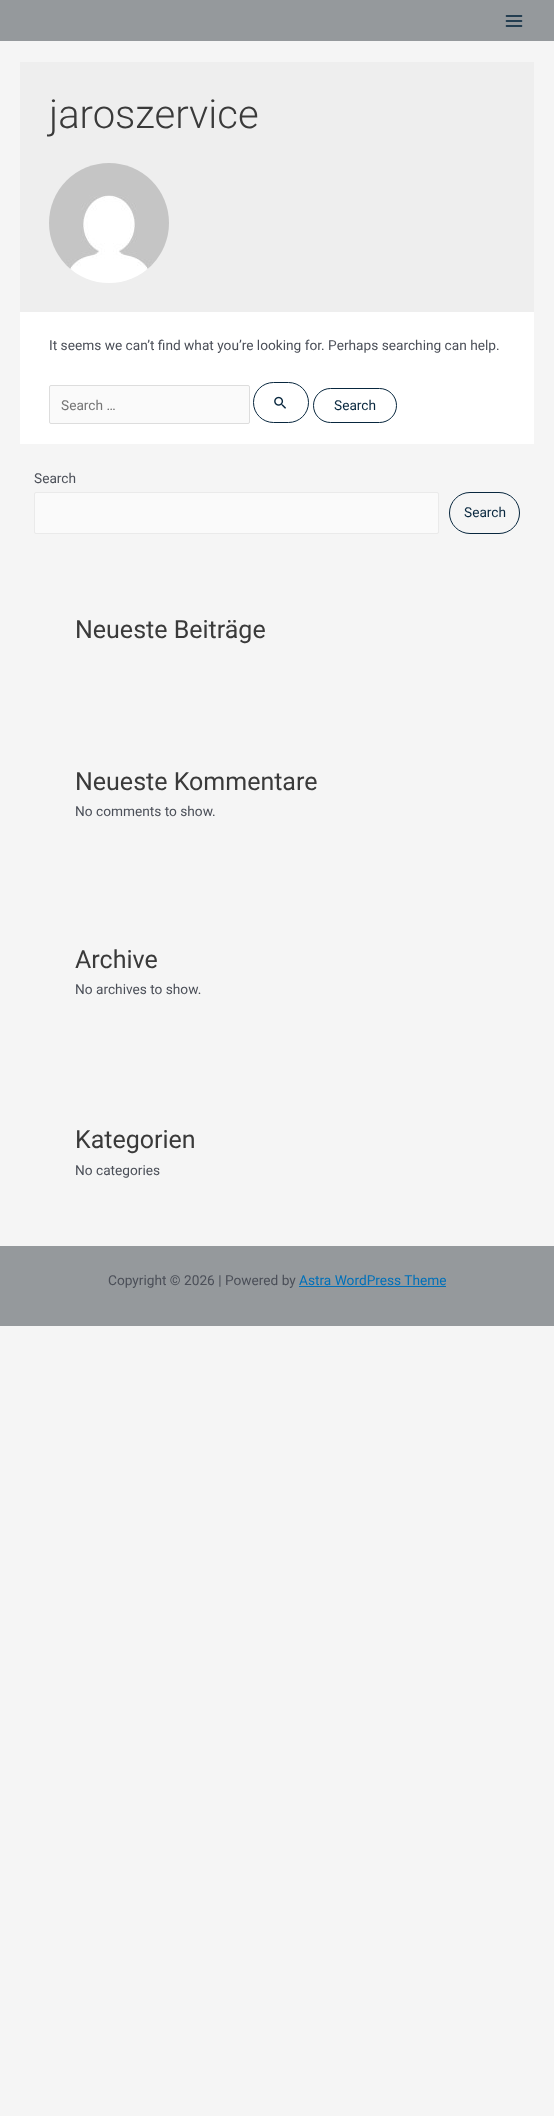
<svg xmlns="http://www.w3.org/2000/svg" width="554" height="2116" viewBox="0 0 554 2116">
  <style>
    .t1 { font: 300 40px Roboto; fill: #3a3a3a; }
    .t2 { font: 13.7px Roboto; fill: #4b4f58; }
    .t3 { font: 13.7px Roboto; fill: #757575; }
    .t4 { font: 13.7px Roboto; fill: #08273e; }
    .t5 { font: 25px Roboto; fill: #3a3a3a; }
    .t6 { font: 13.7px Roboto; fill: #0170b9; }
  </style>
  <rect width="100%" height="100%" fill="#f5f5f5"/>
  <rect x="0" y="0" width="554" height="41" fill="#95999c"/>
  <image x="505" y="15" width="18" height="12" href="images/1.png"/>
  <rect x="20" y="62" width="514" height="250" fill="#eee"/>
  <text x="49" y="128" class="t1">jaroszervice</text>
  <image x="49" y="163" width="120" height="120" href="images/2.png"/>
  <rect x="20" y="312" width="514" height="132" fill="#fff"/>
  <text x="49" y="350" class="t2">It seems we can’t find what you’re looking for. Perhaps searching can help.</text>
  <rect x="49.5" y="385.5" width="200" height="38" rx="1.5" fill="#fafafa" stroke="#ddd"/>
  <text x="61" y="410" class="t3">Search …</text>
  <rect x="253.5" y="382.5" width="55" height="40" rx="20" fill="none" stroke="#08273e"/>
  <image x="274" y="396" width="12" height="13" href="images/3.png"/>
  <rect x="313.5" y="388.5" width="83" height="34" rx="17" fill="none" stroke="#08273e"/>
  <text x="334" y="410" class="t4">Search</text>
  <text x="34" y="483" class="t2">Search</text>
  <rect x="34.5" y="492.5" width="404" height="41" rx="1.5" fill="#fafafa" stroke="#eaeaea"/>
  <rect x="449.5" y="492.5" width="70" height="41" rx="20.5" fill="none" stroke="#08273e"/>
  <text x="464" y="517" class="t4">Search</text>
  <text x="75" y="638" class="t5">Neueste Beiträge</text>
  <text x="75" y="790" class="t5">Neueste Kommentare</text>
  <text x="75" y="816" class="t2">No comments to show.</text>
  <text x="75" y="968" class="t5">Archive</text>
  <text x="75" y="994" class="t2">No archives to show.</text>
  <text x="75" y="1148" class="t5">Kategorien</text>
  <text x="75" y="1175" class="t2">No categories</text>
  <rect x="0" y="1246" width="554" height="80" fill="#95999c"/>
  <text x="108" y="1285" class="t2">Copyright © 2026 | Powered by</text>
  <text x="299" y="1285" class="t6">Astra WordPress Theme</text>
  <rect x="299" y="1286" width="147" height="1" fill="#0170b9"/>
</svg>
